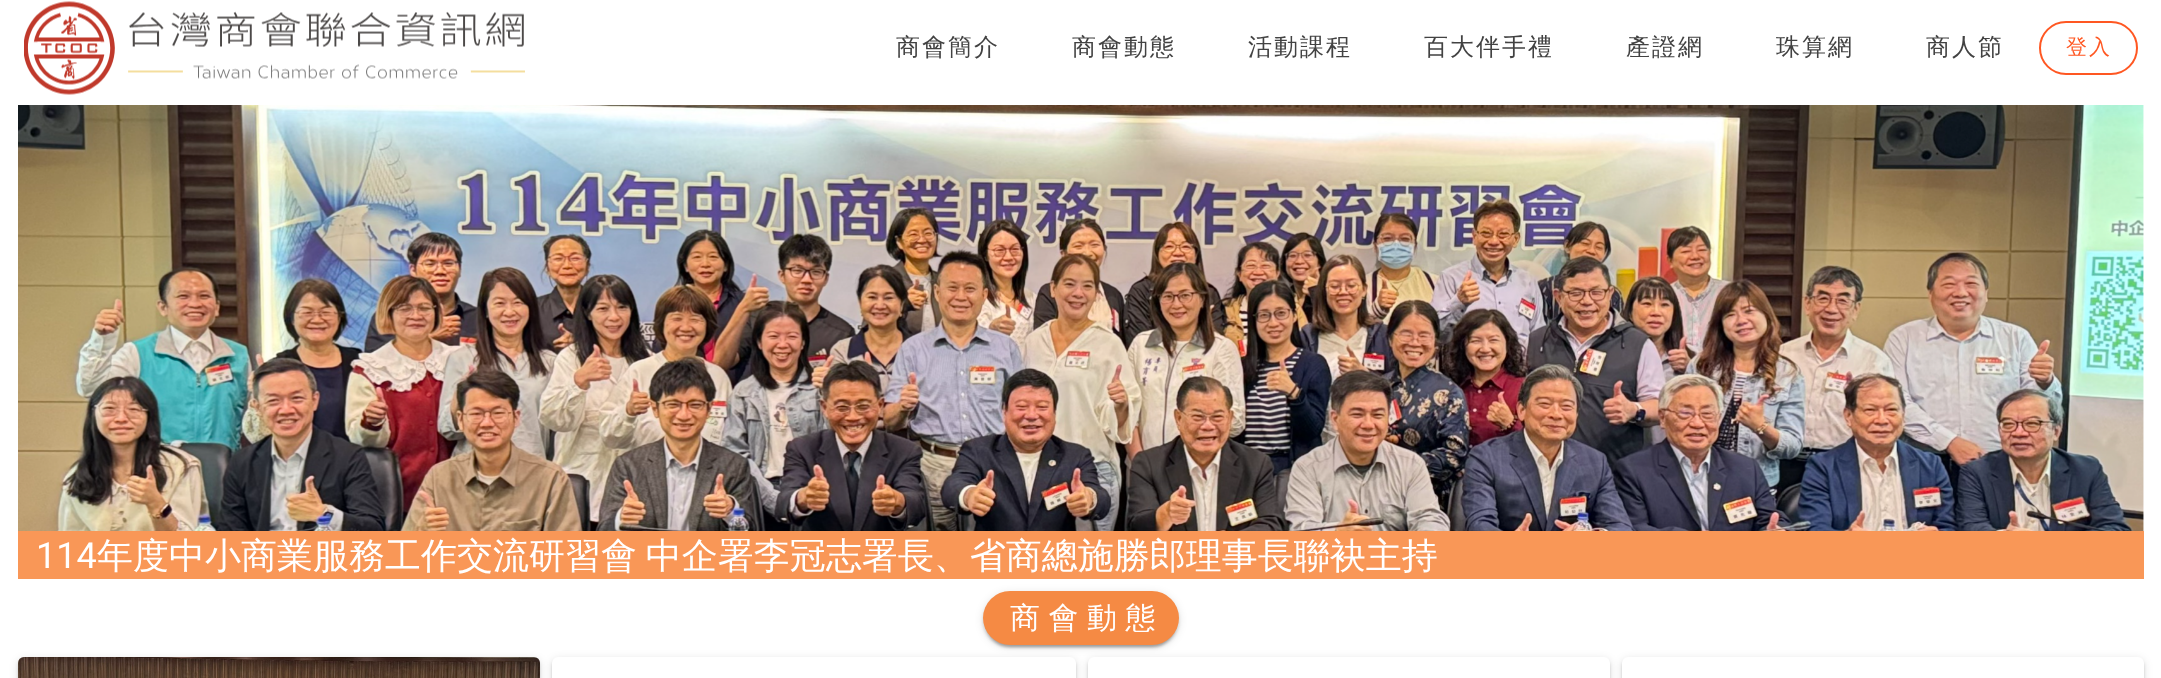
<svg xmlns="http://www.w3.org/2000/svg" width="2161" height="678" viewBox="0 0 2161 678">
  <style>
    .t1 { font: 500 24px WenQuanYi Zen Hei; letter-spacing: 2px; fill: #424242; }
    .t2 { font: 500 21px WenQuanYi Zen Hei; letter-spacing: 2px; fill: #ff5722; }
    .t3 { font: 36px Roboto; fill: #fff; }
    .t4 { font: 500 36px WenQuanYi Zen Hei; fill: #fff; }
    .t5 { font: 500 30px WenQuanYi Zen Hei; letter-spacing: 0.5px; fill: #fff; }
  </style>
  <rect width="100%" height="100%" fill="#fff"/>
  <image x="24" y="1" width="501" height="94" href="images/1.png"/>
  <text x="896" y="55" class="t1">商會簡介</text>
  <text x="1072" y="55" class="t1">商會動態</text>
  <text x="1248" y="55" class="t1">活動課程</text>
  <text x="1424" y="55" class="t1">百大伴手禮</text>
  <text x="1626" y="55" class="t1">產證網</text>
  <text x="1776" y="55" class="t1">珠算網</text>
  <text x="1926" y="55" class="t1">商人節</text>
  <rect x="2040" y="22" width="97" height="52" rx="26" fill="none" stroke="#ff5722" stroke-width="2"/>
  <text x="2066" y="54" class="t2">登入</text>
  <image x="18" y="105" width="2126" height="426" href="images/2.png"/>
  <rect x="18" y="531" width="2126" height="48" fill="#f99757"/>
  <text x="36" y="568" class="t3">114</text>
  <text x="97" y="568" word-spacing="-2" class="t4">年度中小商業服務工作交流研習會 中企署李冠志署長、省商總施勝郎理事長聯袂主持</text>
  <rect x="983" y="593" width="196" height="54" rx="27" fill="#0000001f" filter="blur(4px)"/>
  <rect x="983" y="594" width="196" height="54" rx="27" fill="#00000024" filter="blur(1.5px)"/>
  <rect x="986" y="599" width="190" height="48" rx="24" fill="#00000033" filter="blur(1px)"/>
  <rect x="983" y="591" width="196" height="54" rx="27" fill="#f58a44"/>
  <text x="1010" y="628" word-spacing="-1.5" class="t5">商 會 動 態</text>
  <rect x="18" y="659" width="522" height="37" rx="6" fill="#0000001f" filter="blur(4px)"/>
  <rect x="18" y="660" width="522" height="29" rx="6" fill="#00000024" filter="blur(1.5px)"/>
  <image x="18" y="657" width="522" height="21" href="images/3.png"/>
  <rect x="552" y="659" width="524" height="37" rx="6" fill="#0000001f" filter="blur(4px)"/>
  <rect x="552" y="660" width="524" height="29" rx="6" fill="#00000024" filter="blur(1.5px)"/>
  <rect x="552" y="657" width="524" height="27" rx="6" fill="#fff"/>
  <rect x="1088" y="659" width="522" height="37" rx="6" fill="#0000001f" filter="blur(4px)"/>
  <rect x="1088" y="660" width="522" height="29" rx="6" fill="#00000024" filter="blur(1.5px)"/>
  <rect x="1088" y="657" width="522" height="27" rx="6" fill="#fff"/>
  <rect x="1622" y="659" width="522" height="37" rx="6" fill="#0000001f" filter="blur(4px)"/>
  <rect x="1622" y="660" width="522" height="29" rx="6" fill="#00000024" filter="blur(1.5px)"/>
  <rect x="1622" y="657" width="522" height="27" rx="6" fill="#fff"/>
</svg>
